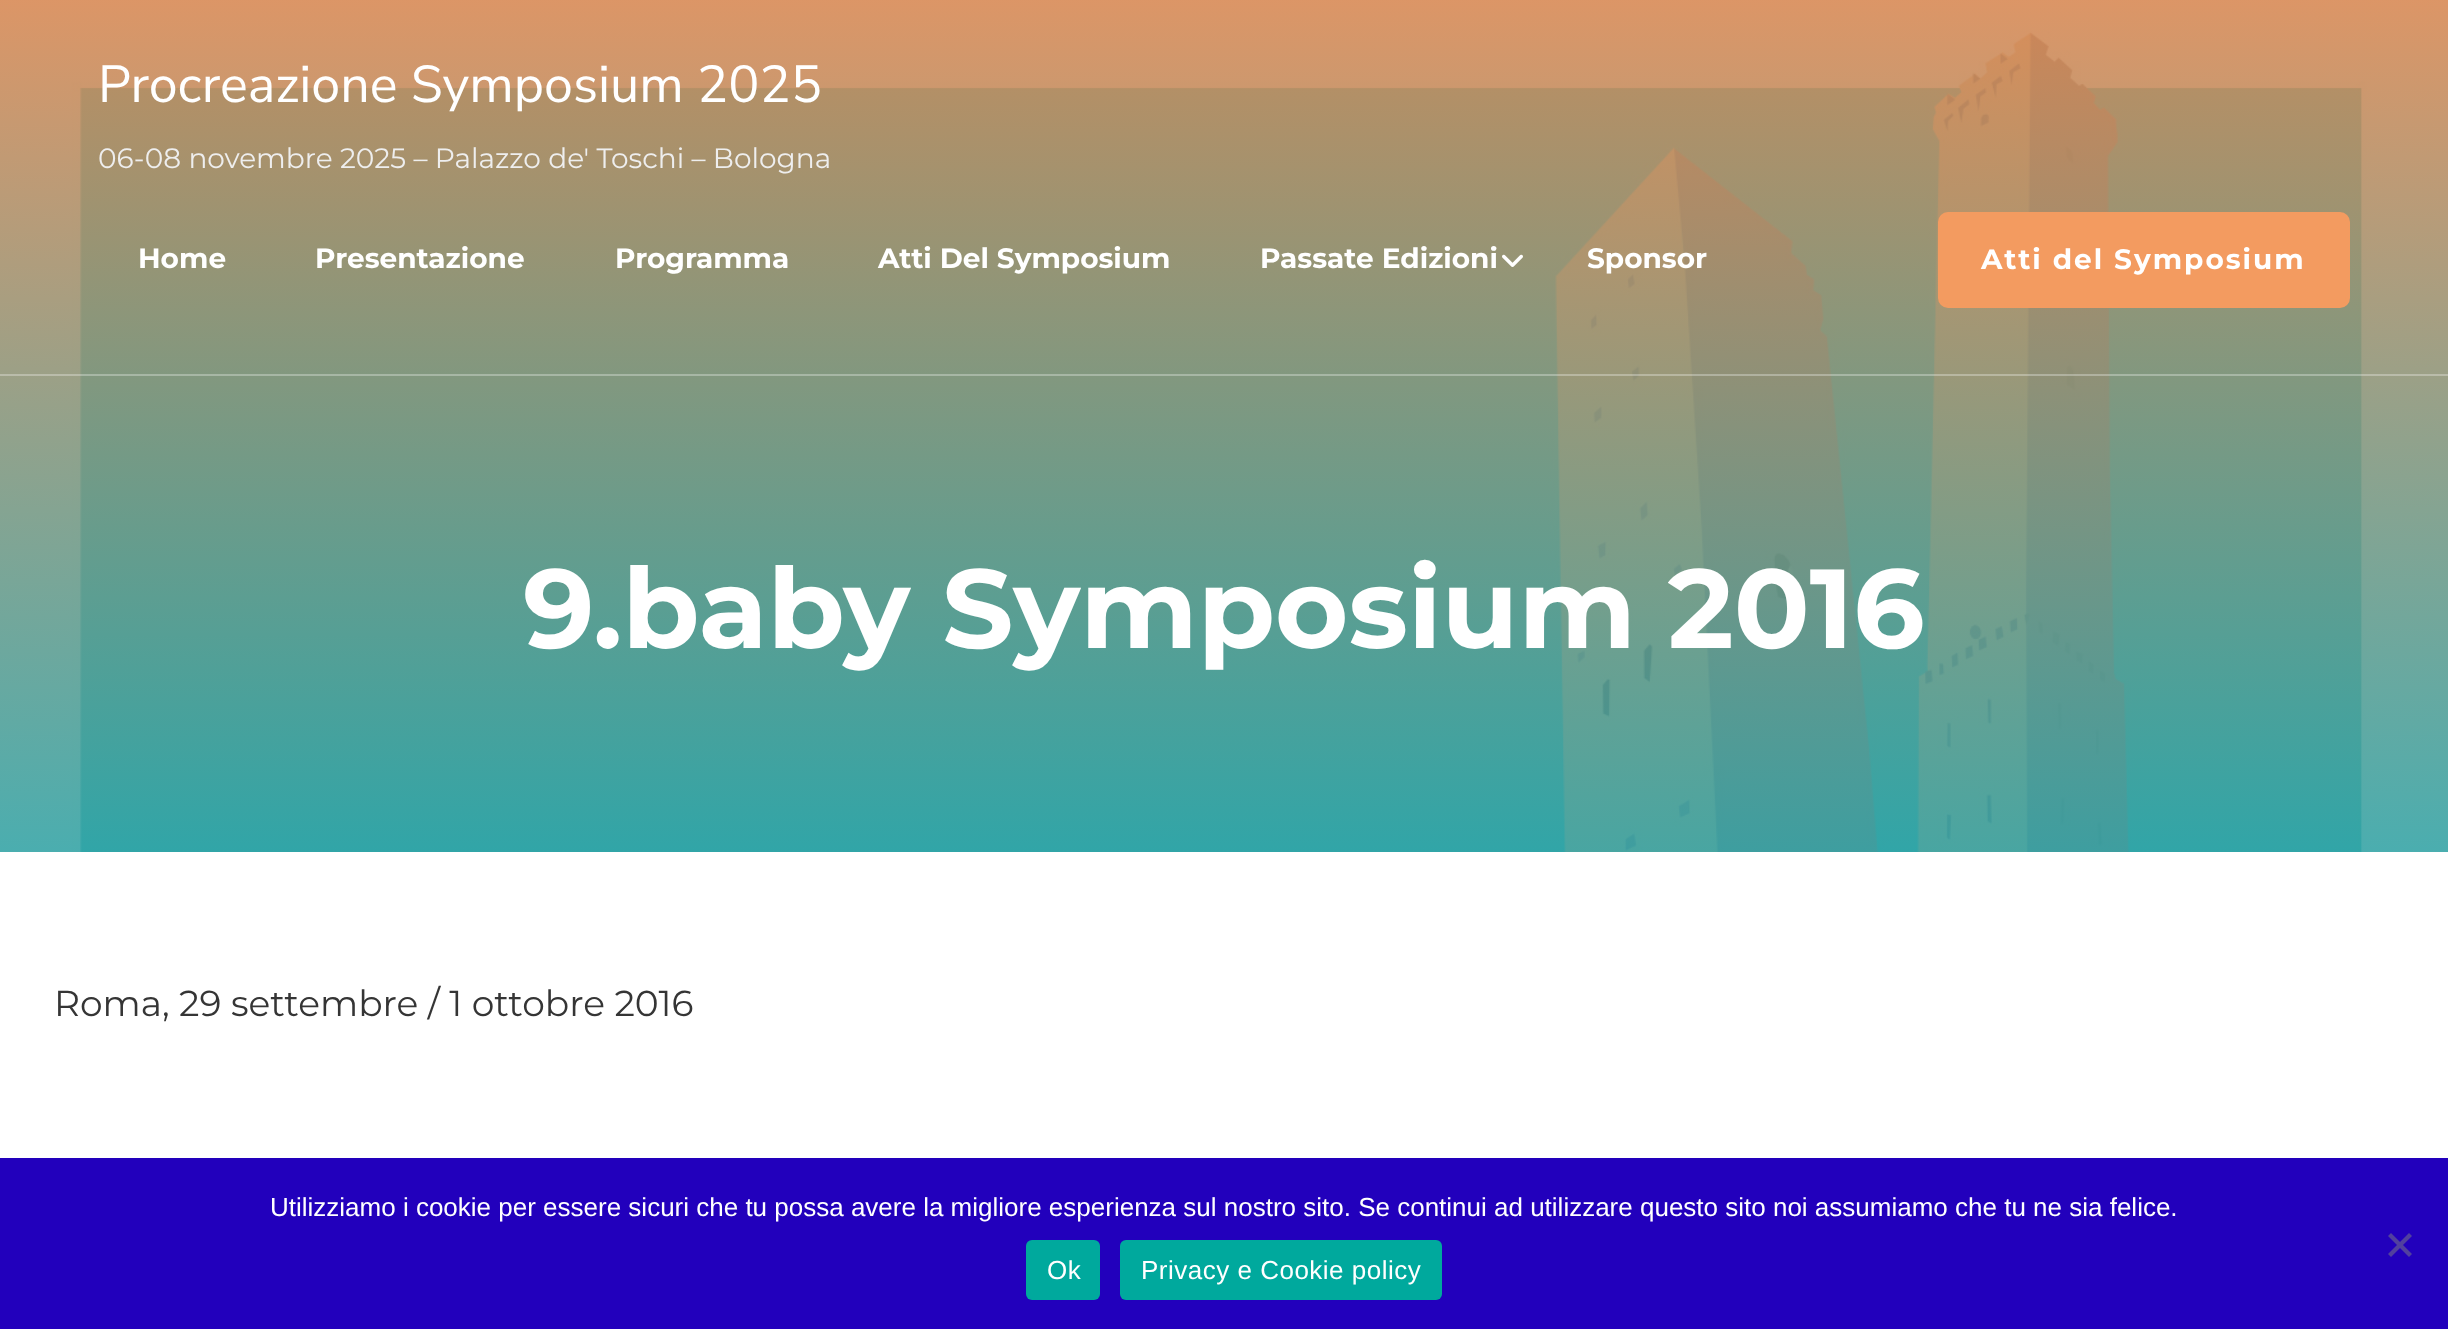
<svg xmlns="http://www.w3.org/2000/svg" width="2448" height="1329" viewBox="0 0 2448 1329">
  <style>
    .t1 { font: 200 52px Nunito Sans; fill: #fff; }
    .t2 { font: 28px Montserrat; fill: #eee; }
    .t3 { font: bold 28px Montserrat; fill: #fff; }
    .t4 { font: bold 28px Montserrat; letter-spacing: 2px; fill: #fff; }
    .t5 { font: bold 112px Montserrat; fill: #fff; }
    .t6 { font: 36px Montserrat; fill: #353535; }
    .t7 { font: 26px Liberation Sans; fill: #fff; }
    .t8 { font: 26px Liberation Sans; letter-spacing: 0.5px; fill: #fff; }
  </style>
  <defs>
    <linearGradient id="g1" gradientUnits="userSpaceOnUse" x1="1224" y1="0" x2="1224" y2="852"><stop offset="0" stop-color="#f39b60" stop-opacity="0.8"/><stop offset="1" stop-color="#3db9bb" stop-opacity="0.8"/></linearGradient>
  </defs>
  <rect width="100%" height="100%" fill="#fff"/>
  <rect x="0" y="0" width="2448" height="852" fill="#808080"/>
  <image x="71" y="30" width="2296" height="822" href="images/2.png"/>
  <rect x="0" y="0" width="2448" height="852" fill="url(#g1)"/>
  <rect x="0" y="374" width="2448" height="2" fill="#ffffff4d"/>
  <text x="98" y="102" class="t1">Procreazione Symposium 2025</text>
  <text x="98" y="168" class="t2">06-08 novembre 2025 – Palazzo de' Toschi – Bologna</text>
  <text x="138" y="268" class="t3">Home</text>
  <text x="315" y="268" class="t3">Presentazione</text>
  <text x="615" y="268" class="t3">Programma</text>
  <text x="878" y="268" class="t3">Atti Del Symposium</text>
  <text x="1260" y="268" class="t3">Passate Edizioni</text>
  <image x="1502" y="254" width="21" height="13" href="images/1.png"/>
  <text x="1587" y="268" class="t3">Sponsor</text>
  <rect x="1940" y="214" width="408" height="92" rx="8" fill="#f39b60" stroke="#f39b60" stroke-width="4"/>
  <text x="1981" y="269" class="t4">Atti del Symposium</text>
  <text x="523" y="648" class="t5">9.baby Symposium 2016</text>
  <text x="54" y="1016" class="t6">Roma, 29 settembre / 1 ottobre 2016</text>
  <rect x="0" y="1158" width="2448" height="171" fill="#2200bc"/>
  <text x="270" y="1216" class="t7">Utilizziamo i cookie per essere sicuri che tu possa avere la migliore esperienza sul nostro sito. Se continui ad utilizzare questo sito noi assumiamo che tu ne sia felice.</text>
  <path d="M2409 1233L2412 1236L2391 1257L2388 1254Z" fill="#51409e"/>
  <path d="M2388 1236L2391 1233L2412 1254L2409 1257Z" fill="#51409e"/>
  <rect x="1026" y="1240" width="74" height="60" rx="6" fill="#00a99d"/>
  <text x="1047" y="1279" class="t8">Ok</text>
  <rect x="1120" y="1240" width="322" height="60" rx="6" fill="#00a99d"/>
  <text x="1141" y="1279" class="t8">Privacy e Cookie policy</text>
</svg>
